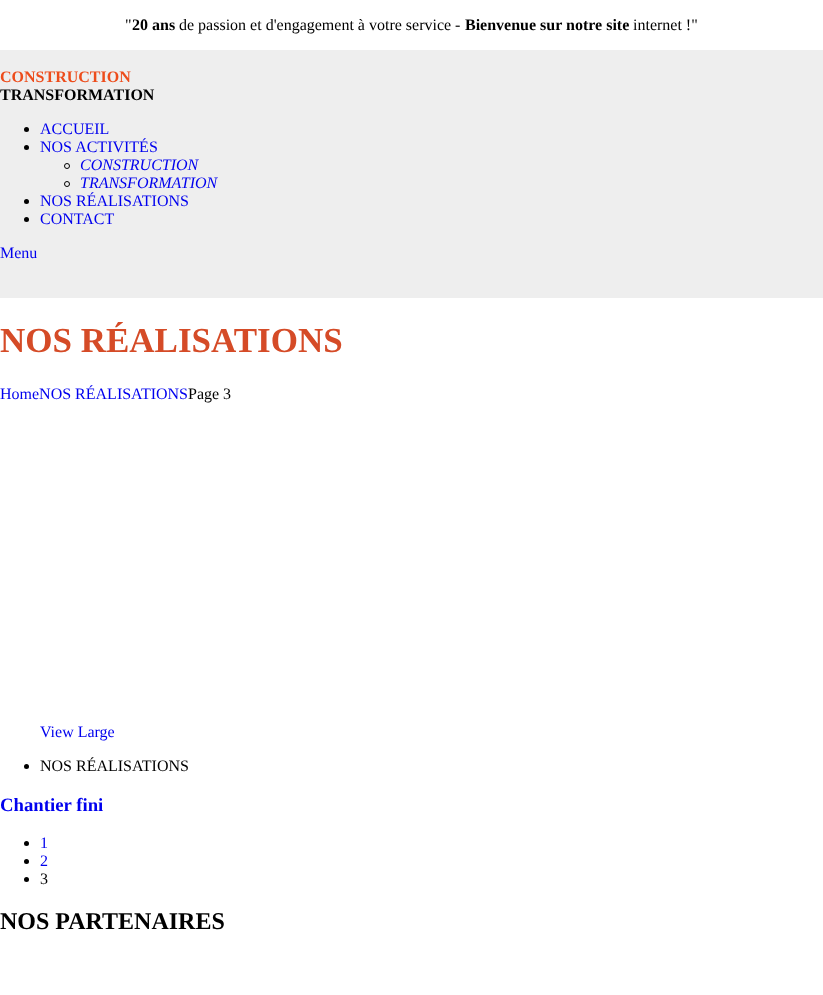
<svg xmlns="http://www.w3.org/2000/svg" width="823" height="995" viewBox="0 0 823 995">
  <style>
    .t1 { font: 16px Liberation Serif; fill: #000; }
    .t2 { font: bold 16px Liberation Serif; fill: #000; }
    .t3 { font: bold 16px Liberation Serif; fill: #ed4c1b; }
    .t4 { font: 16px Liberation Serif; fill: #00e; }
    .t5 { font: italic 16px Liberation Serif; fill: #00e; }
    .t6 { font: bold 35px Liberation Serif; fill: #d54b27; }
    .t7 { font: bold 18.75px Liberation Serif; fill: #00e; }
    .t8 { font: bold 24px Liberation Serif; fill: #000; }
  </style>
  <rect width="100%" height="100%" fill="#fff"/>
  <text x="125" y="30" class="t1">"</text>
  <text x="132" y="30" class="t2">20 ans</text>
  <text x="179" y="30" class="t1">de passion et d'engagement à votre service -</text>
  <text x="465" y="30" class="t2">Bienvenue sur notre site</text>
  <text x="633" y="30" class="t1">internet !"</text>
  <rect x="0" y="50" width="823" height="248" fill="#eee"/>
  <text x="0" y="82" class="t3">CONSTRUCTION</text>
  <text x="0" y="100" class="t2">TRANSFORMATION</text>
  <circle cx="26.5" cy="129.5" r="2.5" fill="#000"/>
  <text x="40" y="134" class="t4">ACCUEIL</text>
  <circle cx="26.5" cy="147.5" r="2.5" fill="#000"/>
  <text x="40" y="152" class="t4">NOS ACTIVITÉS</text>
  <circle cx="67" cy="166" r="2.5" fill="none" stroke="#000"/>
  <text x="80" y="170" class="t5">CONSTRUCTION</text>
  <circle cx="67" cy="184" r="2.5" fill="none" stroke="#000"/>
  <text x="80" y="188" class="t5">TRANSFORMATION</text>
  <circle cx="26.5" cy="201.5" r="2.5" fill="#000"/>
  <text x="40" y="206" class="t4">NOS RÉALISATIONS</text>
  <circle cx="26.5" cy="219.5" r="2.5" fill="#000"/>
  <text x="40" y="224" class="t4">CONTACT</text>
  <text x="0" y="258" class="t4">Menu</text>
  <text x="0" y="352" class="t6">NOS RÉALISATIONS</text>
  <text x="0" y="399" class="t4">HomeNOS RÉALISATIONS</text>
  <text x="188" y="399" class="t1">Page 3</text>
  <text x="40" y="737" class="t4">View Large</text>
  <circle cx="26.5" cy="766.5" r="2.5" fill="#000"/>
  <text x="40" y="771" class="t1">NOS RÉALISATIONS</text>
  <text x="0" y="811" class="t7">Chantier fini</text>
  <circle cx="26.5" cy="843.5" r="2.5" fill="#000"/>
  <text x="40" y="848" class="t4">1</text>
  <circle cx="26.5" cy="861.5" r="2.5" fill="#000"/>
  <text x="40" y="866" class="t4">2</text>
  <circle cx="26.5" cy="879.5" r="2.5" fill="#000"/>
  <text x="40" y="884" class="t1">3</text>
  <text x="0" y="929" class="t8">NOS PARTENAIRES</text>
</svg>
